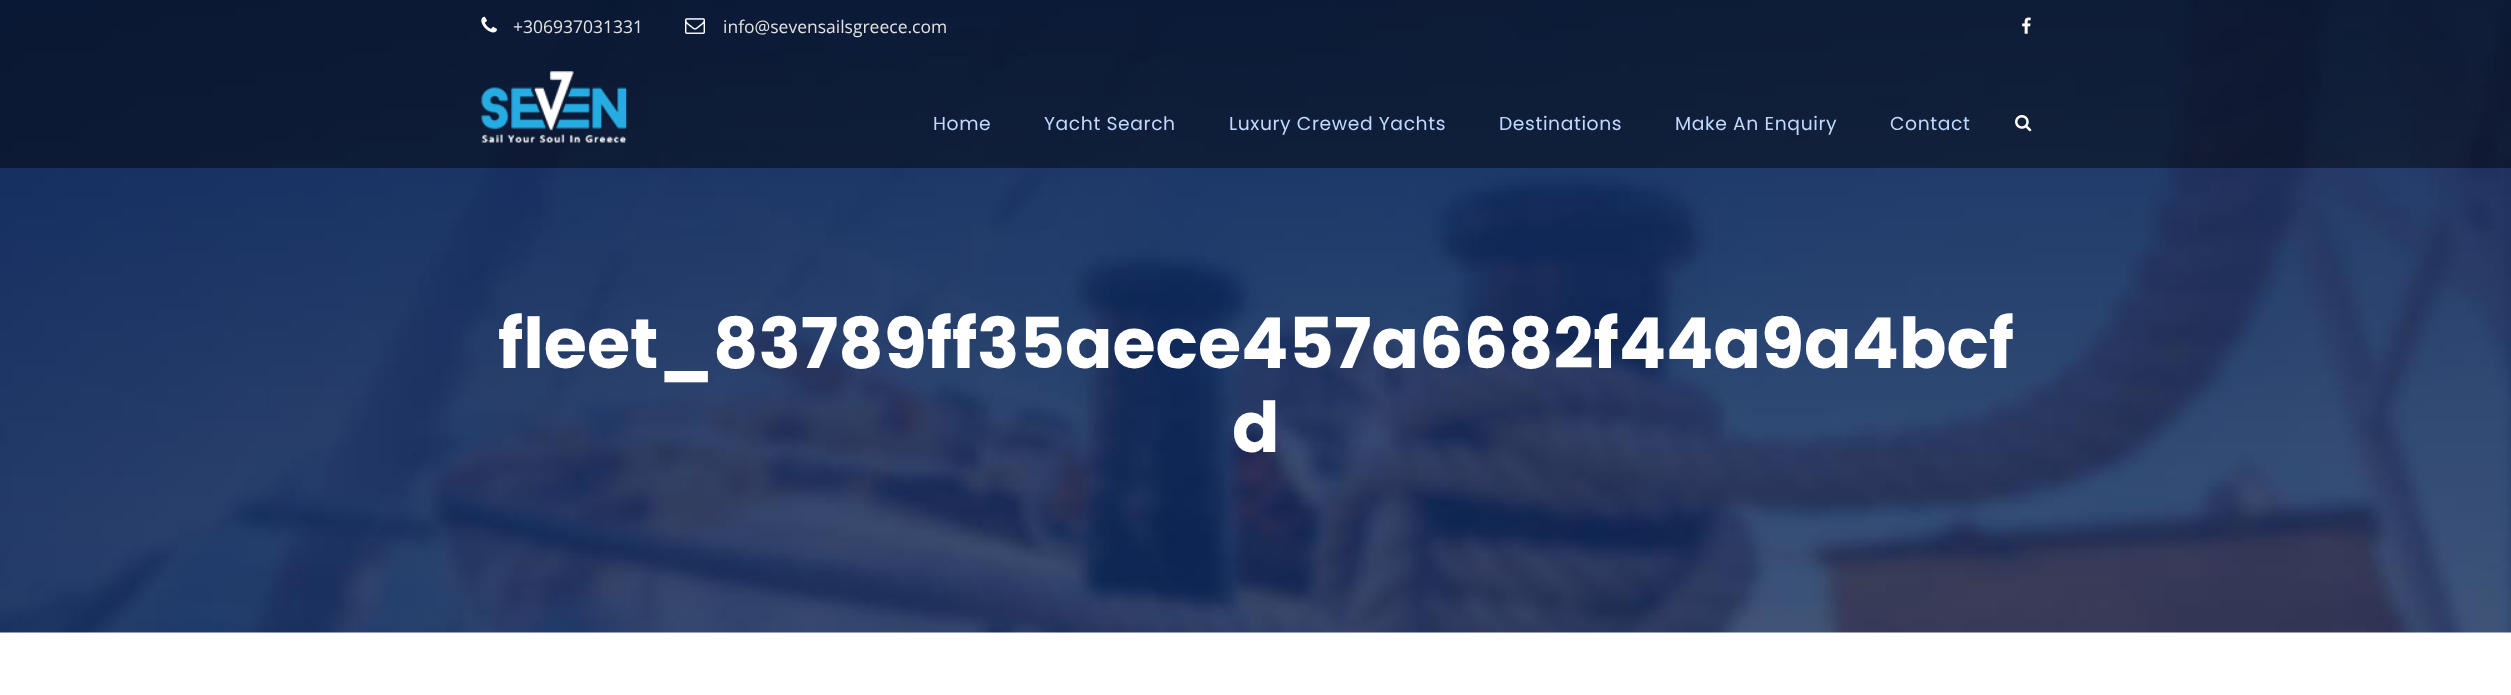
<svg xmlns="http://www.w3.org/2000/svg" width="2511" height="695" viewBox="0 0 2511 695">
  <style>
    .t1 { font: 17.5px Open Sans; fill: #e2e2e2; }
    .t2 { font: 18.75px Poppins; letter-spacing: 0.6px; fill: #c1d9ff; }
    .t3 { font: bold 70px Poppins; fill: #fff; }
  </style>
  <rect width="100%" height="100%" fill="#fff"/>
  <image x="0" y="0" width="2511" height="633" href="images/6.png"/>
  <rect x="0" y="0" width="2511" height="40" fill="#00000073"/>
  <image x="481" y="16" width="16" height="17" href="images/1.png"/>
  <text x="513" y="33" class="t1">+306937031331</text>
  <image x="685" y="18" width="20" height="16" href="images/2.png"/>
  <text x="723" y="33" class="t1">info@sevensailsgreece.com</text>
  <image x="2022" y="17" width="9" height="17" href="images/3.png"/>
  <rect x="0" y="40" width="2511" height="128" fill="#00000073"/>
  <image x="481" y="71" width="146" height="72" href="images/4.png"/>
  <text x="933" y="130" class="t2">Home</text>
  <text x="1044" y="130" class="t2">Yacht Search</text>
  <text x="1229" y="130" class="t2">Luxury Crewed Yachts</text>
  <text x="1499" y="130" class="t2">Destinations</text>
  <text x="1675" y="130" class="t2">Make An Enquiry</text>
  <text x="1890" y="130" class="t2">Contact</text>
  <image x="2015" y="115" width="17" height="17" href="images/5.png"/>
  <text x="498" y="368" class="t3">fleet_83789ff35aece457a6682f44a9a4bcf</text>
  <text x="1232" y="452" class="t3">d</text>
</svg>
